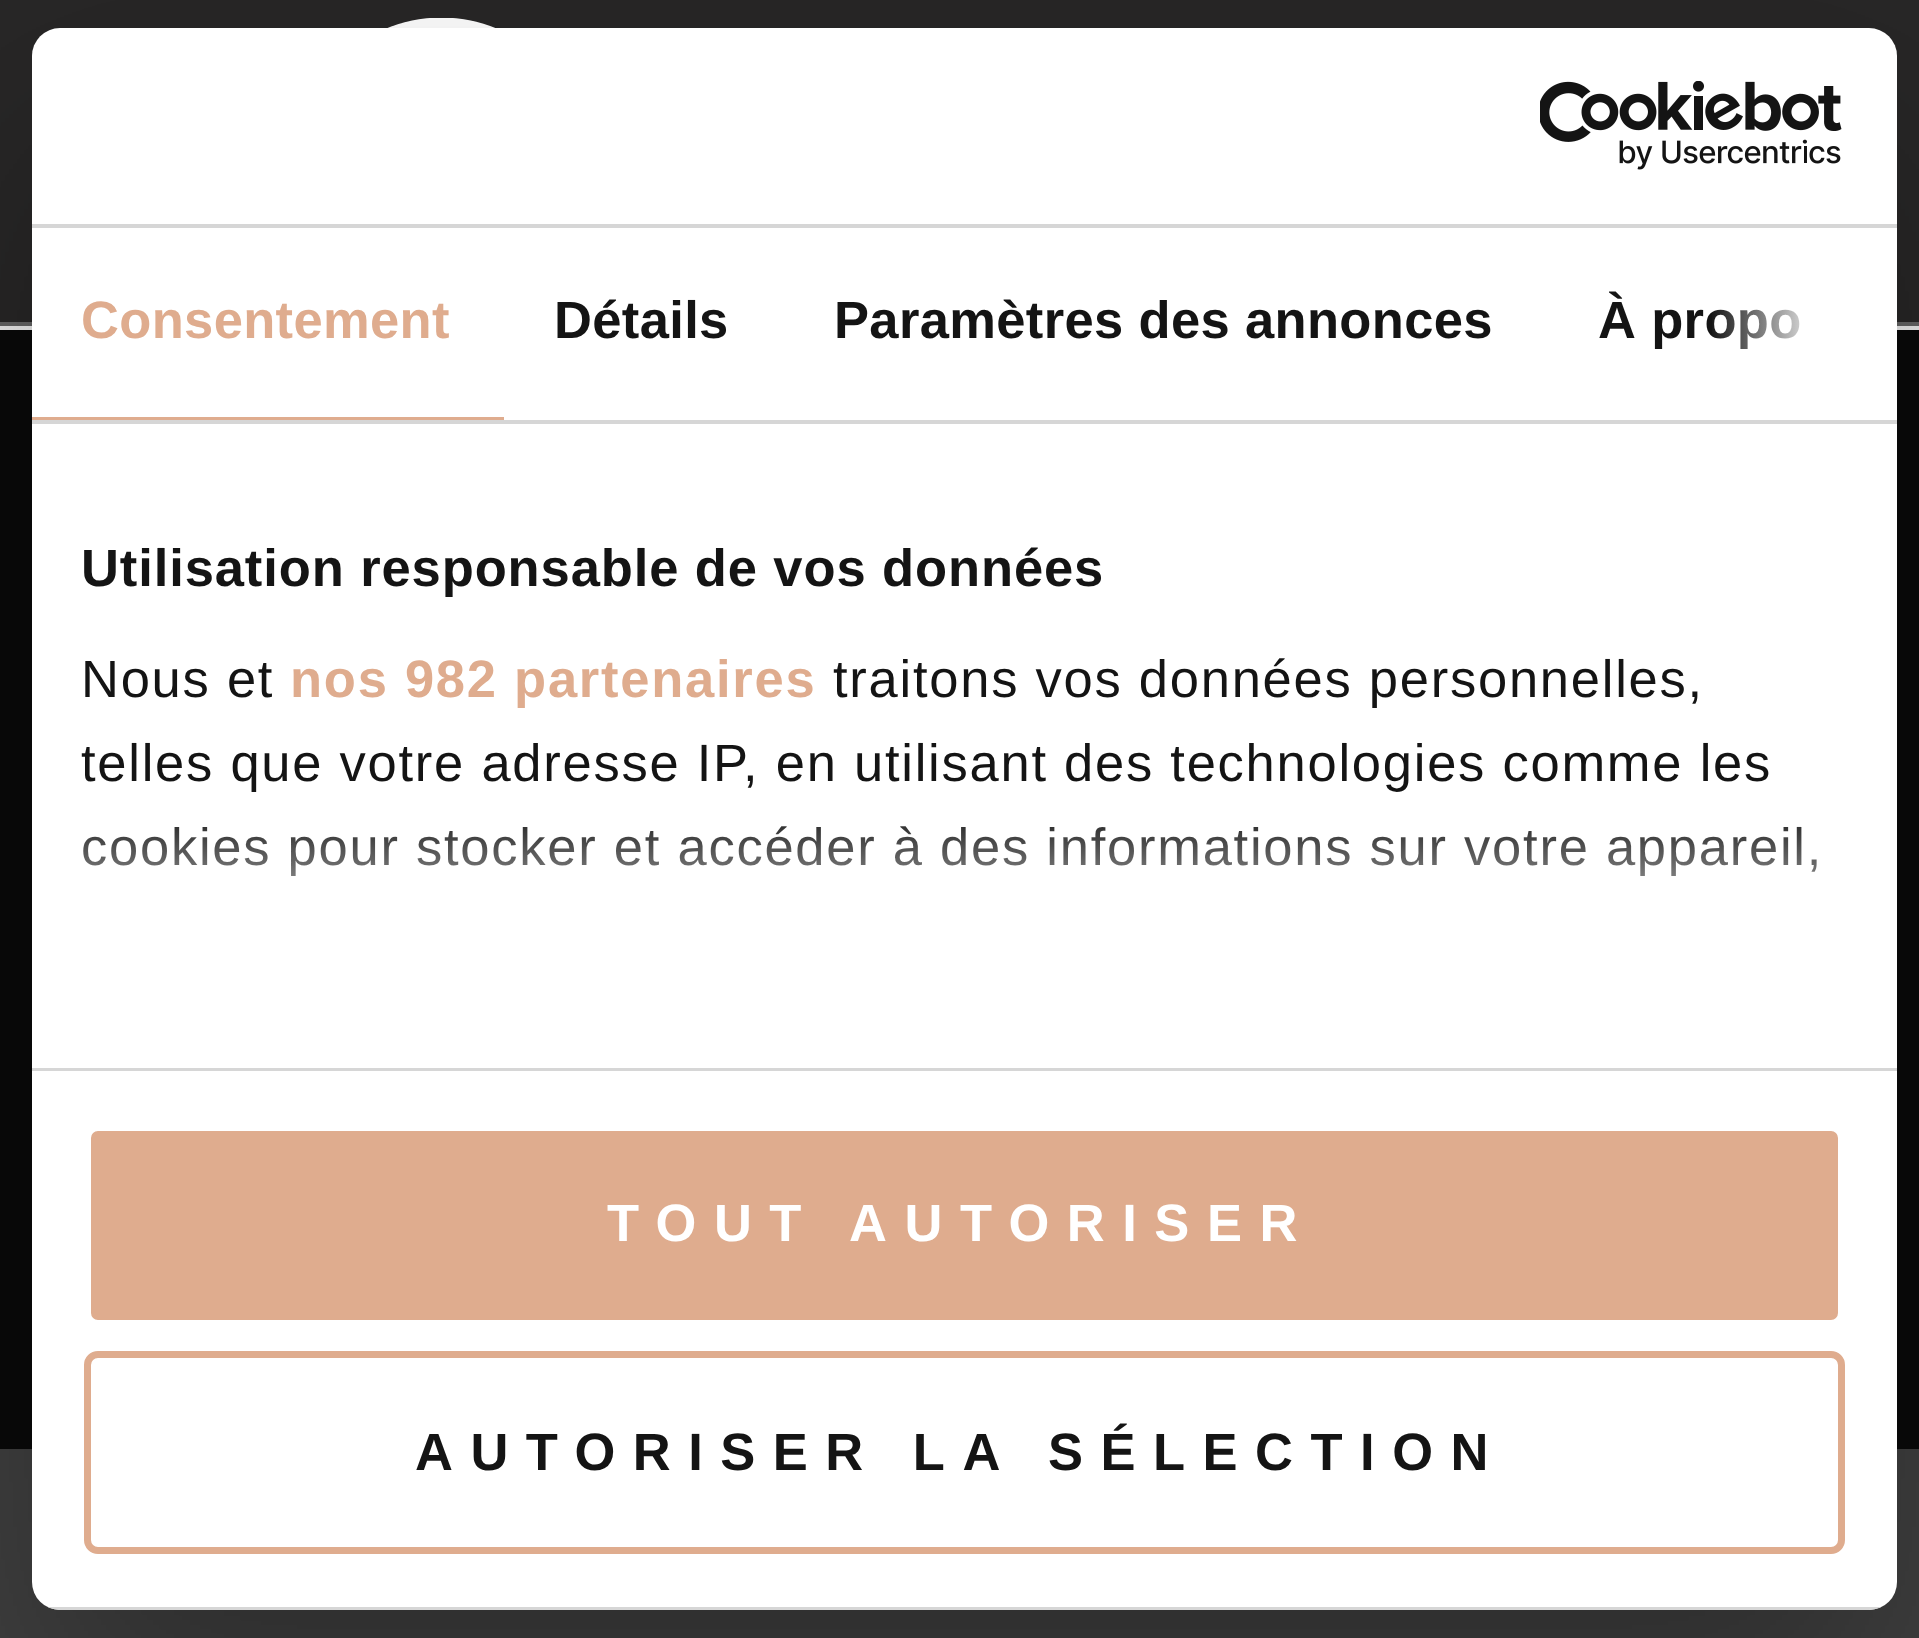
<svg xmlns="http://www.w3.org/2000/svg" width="1919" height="1638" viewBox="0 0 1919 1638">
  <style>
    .t1 { font: bold 52.5px Liberation Sans; letter-spacing: 0.35px; fill: #dfac8e; }
    .t2 { font: bold 52.5px Liberation Sans; letter-spacing: 0.35px; fill: #141414; }
    .t3 { font: bold 52.5px Liberation Sans; letter-spacing: 0.9px; fill: #141414; }
    .t4 { font: 52.5px Liberation Sans; letter-spacing: 1.75px; fill: #141414; }
    .t5 { font: bold 52.5px Liberation Sans; letter-spacing: 1.75px; fill: #dfac8e; }
    .t6 { font: bold 52.5px Liberation Sans; letter-spacing: 17.5px; fill: #fff; }
    .t7 { font: bold 52.5px Liberation Sans; letter-spacing: 17.5px; fill: #141414; }
  </style>
  <defs>
    <clipPath id="clip1"><path d="M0 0H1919V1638H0ZM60 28H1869C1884.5 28 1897 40.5 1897 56V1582C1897 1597.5 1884.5 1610 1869 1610H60C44.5 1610 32 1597.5 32 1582V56C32 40.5 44.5 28 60 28Z" clip-rule="evenodd"/></clipPath>
    <linearGradient id="g1" gradientUnits="userSpaceOnUse" x1="1895" y1="324" x2="1710" y2="324"><stop offset="0" stop-color="#fff"/><stop offset="0.5" stop-color="#fff" stop-opacity="0.8"/><stop offset="1" stop-color="#fff" stop-opacity="0"/></linearGradient>
    <linearGradient id="g2" gradientUnits="userSpaceOnUse" x1="940" y1="1068" x2="940" y2="805"><stop offset="0" stop-color="#fff"/><stop offset="0.5" stop-color="#fff" stop-opacity="0.8"/><stop offset="1" stop-color="#fff" stop-opacity="0"/></linearGradient>
    <clipPath id="clip2"><rect x="32" y="28" width="1865" height="1582" rx="28"/></clipPath>
  </defs>
  <rect width="100%" height="100%" fill="#404040"/>
  <rect x="0" y="326" width="1919" height="4" fill="#f1f1f1"/>
  <rect x="0" y="0" width="1919" height="322" fill="#282727"/>
  <rect x="0" y="322" width="1919" height="4" fill="#666"/>
  <image x="387" y="18" width="108" height="10" href="images/1.png"/>
  <rect x="0" y="330" width="1919" height="1119" fill="#0a0a0a"/>
  <g clip-path="url(#clip1)">
    <rect x="32" y="140" width="1865" height="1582" rx="28" fill="#0000004d" filter="blur(119px)"/>
  </g>
  <rect x="32" y="28" width="1865" height="1582" rx="28" fill="#fff"/>
  <rect x="32" y="224" width="1865" height="4" fill="#d6d6d6"/>
  <image x="1540" y="81" width="302" height="89" href="images/2.png"/>
  <rect x="32" y="420" width="1865" height="4" fill="#d6d6d6"/>
  <rect x="32" y="417" width="472" height="3" fill="#dfac8e"/>
  <text x="81" y="338" class="t1">Consentement</text>
  <text x="554" y="338" class="t2">Détails</text>
  <text x="834" y="338" class="t2">Paramètres des annonces</text>
  <text x="1598" y="338" class="t2">À propo</text>
  <rect x="1712" y="309" width="88" height="40" fill="url(#g1)"/>
  <rect x="32" y="1068" width="1865" height="3" fill="#d6d6d6"/>
  <text x="81" y="586" class="t3">Utilisation responsable de vos données</text>
  <text x="81" y="697" class="t4">Nous et</text>
  <text x="290" y="697" class="t5">nos 982 partenaires</text>
  <text x="833" y="697" class="t4">traitons vos données personnelles,</text>
  <text x="81" y="781" class="t4">telles que votre adresse IP, en utilisant des technologies comme les</text>
  <text x="81" y="865" class="t4">cookies pour stocker et accéder à des informations sur votre appareil,</text>
  <rect x="82" y="826" width="1735" height="50" fill="url(#g2)"/>
  <g clip-path="url(#clip2)">
    <rect x="47" y="1607" width="1835" height="3" fill="#d6d6d6"/>
  </g>
  <rect x="87.5" y="1127.5" width="1754" height="196" rx="10.5" fill="#dfac8e" stroke="#fff" stroke-width="7"/>
  <text x="607" y="1241" class="t6">TOUT AUTORISER</text>
  <rect x="87.5" y="1354.5" width="1754" height="196" rx="10.5" fill="none" stroke="#dfac8e" stroke-width="7"/>
  <text x="415" y="1470" class="t7">AUTORISER LA SÉLECTION</text>
</svg>
